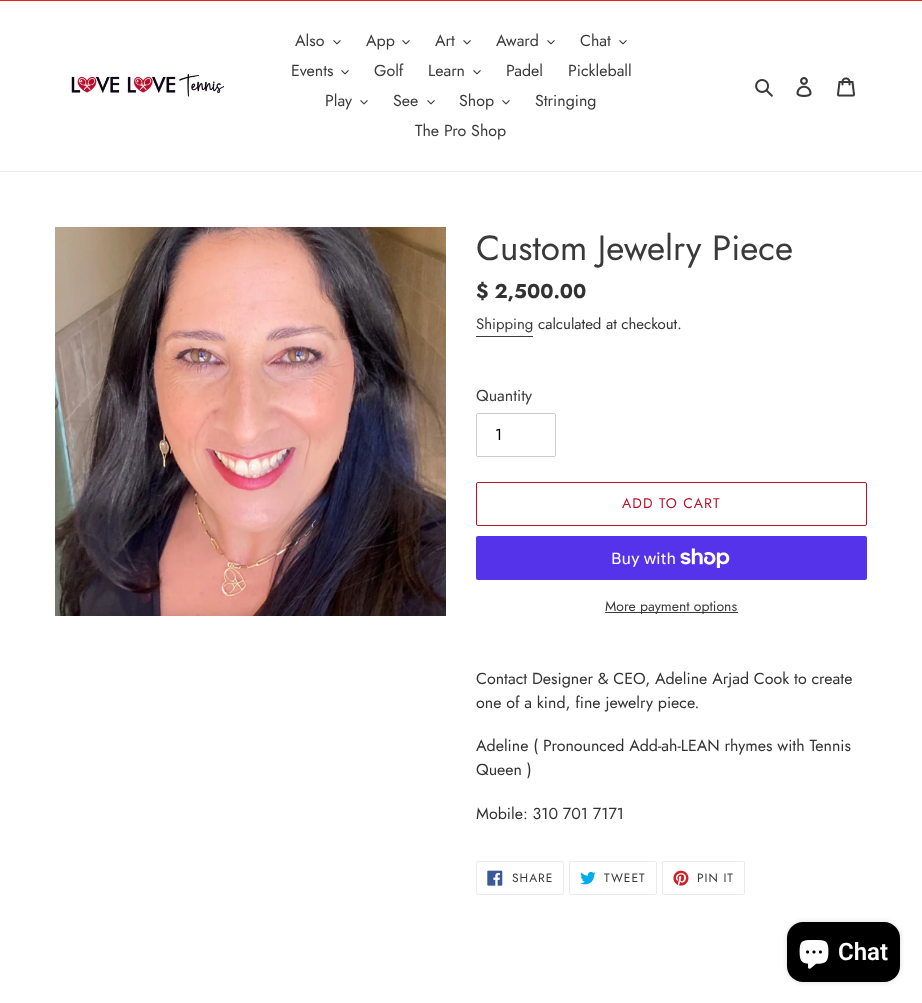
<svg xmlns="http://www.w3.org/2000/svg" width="922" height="1003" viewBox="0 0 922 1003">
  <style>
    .t1 { font: 16px Jost; fill: #3a3a3a; }
    .t2 { font: 35px Jost; fill: #3a3a3a; }
    .t3 { font: bold 20px Jost; fill: #333232; }
    .t4 { font: 15px Jost; fill: #3a3a3a; }
    .t5 { font: 15px Jost; fill: #333232; }
    .t6 { font: 16px Jost; fill: #000; }
    .t7 { font: 14px Jost; letter-spacing: 1.1px; fill: #ba122b; }
    .t8 { font: 16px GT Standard; fill: #fff; }
    .t9 { font: 14px Jost; fill: #3a3a3a; }
    .t10 { font: 16px Jost; fill: #333232; }
    .t11 { font: 12px Jost; letter-spacing: 1px; fill: #3a3a3a; }
    .t12 { font: 600 24px Roboto; fill: #fff; }
  </style>
  <rect width="100%" height="100%" fill="#fff"/>
  <rect x="0" y="0" width="922" height="1" fill="#e22120"/>
  <rect x="0" y="171" width="922" height="1" fill="#ebebeb"/>
  <image x="71" y="74" width="153" height="23" href="images/1.png"/>
  <text x="295" y="46" class="t1">Also</text>
  <image x="333" y="40" width="8" height="5" href="images/2.png"/>
  <text x="366" y="46" class="t1">App</text>
  <image x="402" y="40" width="8" height="5" href="images/2.png"/>
  <text x="435" y="46" class="t1">Art</text>
  <image x="463" y="40" width="8" height="5" href="images/2.png"/>
  <text x="496" y="46" class="t1">Award</text>
  <image x="547" y="40" width="8" height="5" href="images/2.png"/>
  <text x="580" y="46" class="t1">Chat</text>
  <image x="619" y="40" width="8" height="5" href="images/2.png"/>
  <text x="291" y="76" class="t1">Events</text>
  <image x="341" y="70" width="8" height="5" href="images/2.png"/>
  <text x="374" y="76" class="t1">Golf</text>
  <text x="428" y="76" class="t1">Learn</text>
  <image x="473" y="70" width="8" height="5" href="images/2.png"/>
  <text x="506" y="76" class="t1">Padel</text>
  <text x="568" y="76" class="t1">Pickleball</text>
  <text x="325" y="106" class="t1">Play</text>
  <image x="360" y="100" width="8" height="5" href="images/2.png"/>
  <text x="393" y="106" class="t1">See</text>
  <image x="427" y="100" width="8" height="5" href="images/2.png"/>
  <text x="459" y="106" class="t1">Shop</text>
  <image x="502" y="100" width="8" height="5" href="images/2.png"/>
  <text x="535" y="106" class="t1">Stringing</text>
  <text x="415" y="136" class="t1">The Pro Shop</text>
  <image x="755" y="79" width="18" height="18" href="images/3.png"/>
  <image x="796" y="77" width="16" height="20" href="images/4.png"/>
  <image x="837" y="77" width="18" height="20" href="images/5.png"/>
  <image x="55" y="227" width="391" height="389" href="images/6.png"/>
  <text x="476" y="260" class="t2">Custom Jewelry Piece</text>
  <text x="476" y="298" class="t3">$ 2,500.00</text>
  <text x="476" y="329" class="t4">Shipping</text>
  <rect x="476" y="336" width="57" height="1" fill="#3a3a3a"/>
  <text x="538" y="329" class="t5">calculated at checkout.</text>
  <text x="476" y="401" class="t1">Quantity</text>
  <rect x="476.5" y="413.5" width="79" height="43" rx="1.5" fill="none" stroke="#ccc"/>
  <text x="495" y="440" class="t6">1</text>
  <rect x="476.5" y="482.5" width="390" height="43" rx="1.5" fill="none" stroke="#ba122b"/>
  <text x="622" y="508" class="t7">ADD TO CART</text>
  <rect x="476" y="536" width="391" height="44" rx="2" fill="#5433eb"/>
  <text x="611" y="564" class="t8">Buy with</text>
  <image x="680" y="548" width="50" height="20" href="images/7.png"/>
  <rect x="605" y="612" width="133" height="1" fill="#3a3a3a"/>
  <text x="605" y="611" class="t9">More payment options</text>
  <text x="476" y="684" class="t10">Contact Designer &amp; CEO, Adeline Arjad Cook to create</text>
  <text x="476" y="708" class="t10">one of a kind, fine jewelry piece.</text>
  <text x="476" y="751" class="t10">Adeline ( Pronounced Add-ah-LEAN rhymes with Tennis</text>
  <text x="476" y="775" class="t10">Queen )</text>
  <text x="476" y="819" class="t10">Mobile: 310 701 7171</text>
  <rect x="476.5" y="861.5" width="87" height="33" rx="1.5" fill="none" stroke="#ebebeb"/>
  <image x="487" y="870" width="16" height="16" href="images/8.png"/>
  <text x="512" y="882" class="t11">SHARE</text>
  <rect x="569.5" y="861.5" width="87" height="33" rx="1.5" fill="none" stroke="#ebebeb"/>
  <image x="580" y="871" width="16" height="14" href="images/9.png"/>
  <text x="604" y="882" class="t11">TWEET</text>
  <rect x="662.5" y="861.5" width="82" height="33" rx="1.5" fill="none" stroke="#ebebeb"/>
  <image x="673" y="870" width="16" height="16" href="images/10.png"/>
  <text x="697" y="882" class="t11">PIN IT</text>
  <rect x="787" y="922" width="113" height="60" rx="16" fill="#00000026" filter="blur(2.5px)"/>
  <rect x="787" y="922" width="113" height="60" rx="16" fill="#000"/>
  <image x="799" y="940" width="30" height="29" href="images/11.png"/>
  <text x="838" y="960" class="t12">Chat</text>
</svg>
